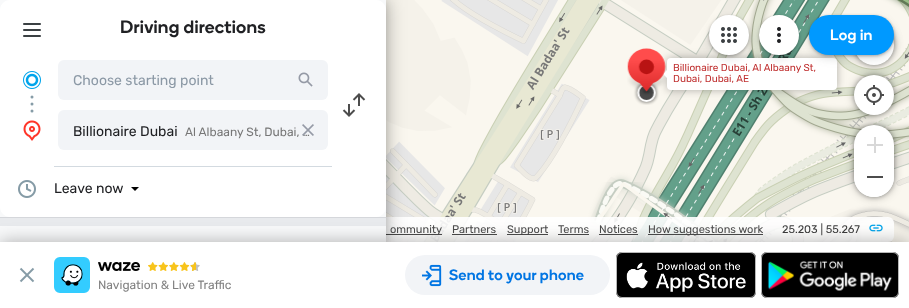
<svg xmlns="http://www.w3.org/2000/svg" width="909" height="308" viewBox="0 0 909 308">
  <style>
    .t1 { font: 500 18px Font; letter-spacing: 0.25px; fill: #202124; }
    .t2 { font: 14px Rubik; fill: #8b98a5; }
    .t3 { font: 12px Rubik; fill: #777; }
    .t4 { font: 14px Rubik; fill: #202124; }
    .t5 { font: 10px Rubik; fill: #c03131; }
    .t6 { font: 11px Rubik; fill: #4c4c4c; }
    .t7 { font: 11px Rubik; fill: #3d3d3d; }
    .t8 { font: 500 15px 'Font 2'; letter-spacing: 0.25px; fill: #fff; }
    .t9 { font: 500 15px 'Font 2'; letter-spacing: 0.25px; fill: #0075e3; }
    .t10 { font: 12px Rubik; fill: #818181; }
  </style>
  <rect width="100%" height="100%" fill="#fff"/>
  <image x="386" y="0" width="82" height="182" href="images/8.png"/>
  <image x="386" y="182" width="82" height="60" href="images/11.png"/>
  <image x="468" y="182" width="256" height="60" href="images/12.png"/>
  <image x="724" y="182" width="185" height="60" href="images/13.png"/>
  <rect x="303" y="217" width="591" height="25" rx="6" fill="#ffffffe6"/>
  <rect x="383" y="234" width="59" height="1" fill="#4c4c4c"/>
  <rect x="0" y="2" width="386" height="242" fill="#0000001f" filter="blur(4px)"/>
  <rect x="0" y="0" width="386" height="242" fill="#0000004d" filter="blur(10px)"/>
  <rect x="0" y="0" width="386" height="242" fill="#f8f9fa"/>
  <path d="M10 0H376C381.5 0 386 4.5 386 10V60H0V10C0 4.5 4.5 0 10 0Z" fill="#fff"/>
  <image x="23" y="23" width="18" height="14" href="images/1.png"/>
  <text x="120" y="33" class="t1">Driving directions</text>
  <rect x="0" y="60" width="386" height="106" fill="#fff"/>
  <circle cx="32" cy="97" r="1.5" fill="#869ca7"/>
  <circle cx="32" cy="104" r="1.5" fill="#869ca7"/>
  <circle cx="32" cy="111" r="1.5" fill="#869ca7"/>
  <image x="23" y="71" width="18" height="18" href="images/2.png"/>
  <rect x="58" y="60" width="270" height="40" rx="6" fill="#f2f4f7"/>
  <text x="73" y="85" class="t2">Choose starting point</text>
  <image x="298" y="72" width="15" height="15" href="images/3.png"/>
  <image x="342" y="93" width="24" height="24" href="images/4.png"/>
  <image x="23" y="120" width="18" height="21" href="images/5.png"/>
  <rect x="58" y="110" width="270" height="40" rx="6" fill="#f2f4f7"/>
  <text x="185" y="136" class="t3">Al Albaany St, Dubai, …</text>
  <image x="302" y="124" width="12" height="12" href="images/6.png"/>
  <text x="73" y="136" class="t4">Billionaire Dubai</text>
  <path d="M0 166H386V207C386 212.5 381.5 217 376 217H10C4.5 217 0 212.5 0 207Z" fill="#fff"/>
  <rect x="54" y="166" width="278" height="1" fill="#d3dae0"/>
  <image x="18" y="180" width="18" height="18" href="images/7.png"/>
  <text x="54" y="193" class="t4">Leave now</text>
  <path d="M131 187H139L135 191Z" fill="#000"/>
  <rect x="0" y="217" width="386" height="1" fill="#d5d7db"/>
  <rect x="0" y="218" width="386" height="8" fill="#e8eaed"/>
  <image x="468" y="0" width="256" height="182" href="images/9.png"/>
  <image x="724" y="0" width="185" height="182" href="images/10.png"/>
  <rect x="667" y="58" width="170" height="32" rx="4" fill="#0000004d" filter="blur(4px)"/>
  <path d="M667 70V78L663 74Z" fill="#fff"/>
  <image x="627" y="48" width="39" height="57" href="images/14.png"/>
  <rect x="667" y="58" width="170" height="32" rx="4" fill="#fff"/>
  <text x="673" y="71" class="t5">Billionaire Dubai, Al Albaany St,</text>
  <text x="673" y="82" class="t5">Dubai, Dubai, AE</text>
  <rect x="854" y="25" width="40" height="40" rx="20" fill="#0000004d" filter="blur(5px)"/>
  <rect x="854" y="25" width="40" height="40" rx="20" fill="#0000004d" filter="blur(2px)"/>
  <circle cx="874" cy="45" r="20" fill="#fff"/>
  <rect x="854" y="75" width="40" height="40" rx="20" fill="#0000004d" filter="blur(5px)"/>
  <rect x="854" y="75" width="40" height="40" rx="20" fill="#0000004d" filter="blur(2px)"/>
  <circle cx="874" cy="95" r="20" fill="#fff"/>
  <image x="864" y="85" width="20" height="20" href="images/15.png"/>
  <rect x="854" y="125" width="40" height="72" rx="20" fill="#0000004d" filter="blur(5px)"/>
  <rect x="854" y="125" width="40" height="72" rx="20" fill="#0000004d" filter="blur(2px)"/>
  <rect x="854" y="125" width="40" height="72" rx="20" fill="#fff"/>
  <image x="867" y="137" width="16" height="16" href="images/16.png"/>
  <path d="M854 161H894V177C894 188 885 197 874 197C863 197 854 188 854 177Z" fill="#fff"/>
  <rect x="867" y="176" width="16" height="2" fill="#4c4c4c"/>
  <text x="390" y="233" class="t6">ommunity</text>
  <text x="452" y="233" class="t6">Partners</text>
  <rect x="452" y="234" width="45" height="1" fill="#4c4c4c"/>
  <rect x="507" y="234" width="41" height="1" fill="#4c4c4c"/>
  <text x="507" y="233" class="t6">Support</text>
  <text x="558" y="233" class="t6">Terms</text>
  <rect x="558" y="234" width="31" height="1" fill="#4c4c4c"/>
  <text x="599" y="233" class="t6">Notices</text>
  <rect x="599" y="234" width="39" height="1" fill="#4c4c4c"/>
  <rect x="648" y="234" width="115" height="1" fill="#4c4c4c"/>
  <text x="648" y="233" class="t6">How suggestions work</text>
  <text x="782" y="233" class="t7">25.203 | 55.267</text>
  <image x="869" y="224" width="14" height="8" href="images/17.png"/>
  <rect x="709" y="19" width="40" height="40" rx="20" fill="#3c404326" filter="blur(4px)"/>
  <rect x="709" y="16" width="40" height="40" rx="20" fill="#0000004d" filter="blur(1.5px)"/>
  <circle cx="729" cy="35" r="19" fill="#fff" stroke="#fff" stroke-width="2"/>
  <image x="721" y="27" width="16" height="16" href="images/18.png"/>
  <rect x="759" y="19" width="40" height="40" rx="20" fill="#3c404326" filter="blur(4px)"/>
  <rect x="759" y="16" width="40" height="40" rx="20" fill="#0000004d" filter="blur(1.5px)"/>
  <circle cx="779" cy="35" r="19" fill="#fff" stroke="#fff" stroke-width="2"/>
  <image x="777" y="27" width="4" height="16" href="images/19.png"/>
  <rect x="809" y="19" width="85" height="40" rx="20" fill="#3c404326" filter="blur(4px)"/>
  <rect x="809" y="16" width="85" height="40" rx="20" fill="#0000004d" filter="blur(1.5px)"/>
  <rect x="809" y="15" width="85" height="40" rx="20" fill="#09f"/>
  <text x="830" y="40" class="t8">Log in</text>
  <rect x="0" y="242" width="909" height="66" fill="#0000004d" filter="blur(9px)"/>
  <rect x="0" y="242" width="909" height="66" fill="#fff"/>
  <image x="19" y="267" width="16" height="16" href="images/20.png"/>
  <rect x="405" y="255" width="205" height="40" rx="20" fill="#f2f4f7"/>
  <image x="422" y="264" width="20" height="23" href="images/21.png"/>
  <text x="449" y="280" class="t9">Send to your phone</text>
  <image x="616" y="252" width="140" height="46" href="images/22.png"/>
  <rect x="616.5" y="252.5" width="139" height="45" rx="5.5" fill="none" stroke="#b7b7b7"/>
  <image x="761" y="252" width="138" height="46" href="images/23.png"/>
  <rect x="761.5" y="252.5" width="137" height="45" rx="5.5" fill="none" stroke="#b7b7b7"/>
  <image x="54" y="257" width="36" height="36" href="images/24.png"/>
  <image x="98" y="262" width="42" height="9" href="images/25.png"/>
  <image x="148" y="262" width="52" height="9" href="images/26.png"/>
  <text x="98" y="289" class="t10">Navigation &amp; Live Traffic</text>
</svg>
